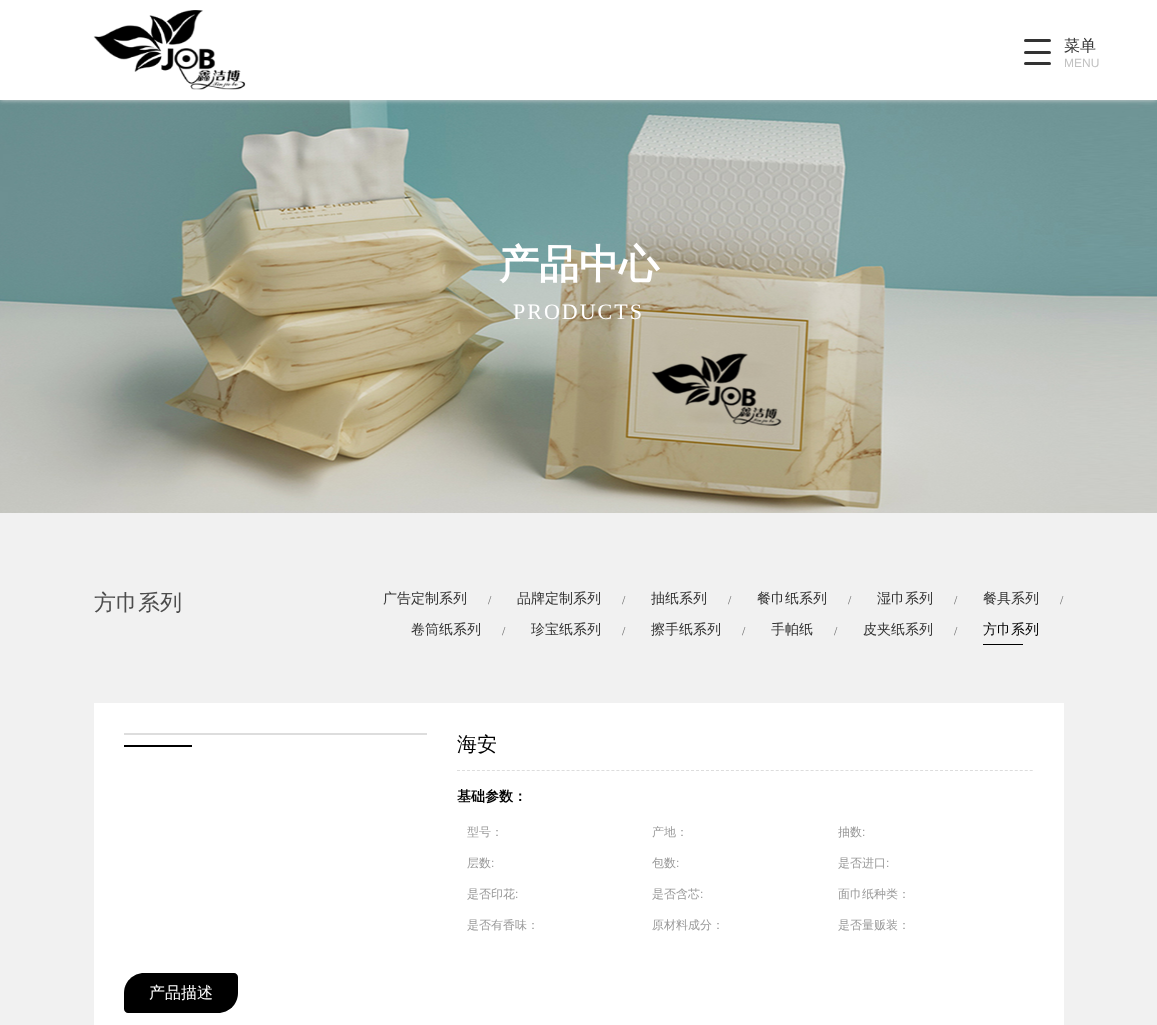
<svg xmlns="http://www.w3.org/2000/svg" width="1157" height="1025" viewBox="0 0 1157 1025">
  <style>
    .t1 { font: 500 16px WenQuanYi Zen Hei; fill: #333; }
    .t2 { font: 12px Liberation Sans; fill: #c2c2c2; }
    .t3 { font: bold 40px WenQuanYi Zen Hei; fill: #fff; }
    .t4 { font: 22px Liberation Serif; letter-spacing: 2px; fill: #fff; }
    .t5 { font: 500 22px WenQuanYi Zen Hei; fill: #4c4c4c; }
    .t6 { font: 500 14px WenQuanYi Zen Hei; fill: #333; }
    .t7 { font: 12px Liberation Serif; fill: #666; }
    .t8 { font: 500 14px WenQuanYi Zen Hei; fill: #000; }
    .t9 { font: 500 20px WenQuanYi Zen Hei; fill: #000; }
    .t10 { font: bold 14px WenQuanYi Zen Hei; fill: #000; }
    .t11 { font: 500 12px WenQuanYi Zen Hei; fill: #999; }
    .t12 { font: 12px Liberation Sans; fill: #999; }
    .t13 { font: 500 16px WenQuanYi Zen Hei; fill: #fff; }
  </style>
  <rect width="100%" height="100%" fill="#f1f1f1"/>
  <image x="0" y="100" width="1157" height="413" href="images/2.png"/>
  <rect x="0" y="0" width="1157" height="100" fill="#d9d9d9" filter="blur(2.5px)"/>
  <rect x="0" y="0" width="1157" height="100" fill="#fff"/>
  <image x="93" y="10" width="153" height="80" href="images/1.png"/>
  <rect x="1024" y="39" width="27" height="3" rx="1.5" fill="#333"/>
  <text x="1064" y="51" class="t1">菜单</text>
  <text x="1064" y="67" class="t2">MENU</text>
  <rect x="1024" y="51" width="27" height="3" rx="1.5" fill="#333"/>
  <rect x="1024" y="62" width="27" height="3" rx="1.5" fill="#333"/>
  <text x="499" y="278" class="t3">产品中心</text>
  <text x="513" y="319" class="t4">PRODUCTS</text>
  <text x="94" y="610" class="t5">方巾系列</text>
  <text x="383" y="603" class="t6">广告定制系列</text>
  <text x="488" y="604" class="t7">/</text>
  <text x="517" y="603" class="t6">品牌定制系列</text>
  <text x="622" y="604" class="t7">/</text>
  <text x="651" y="603" class="t6">抽纸系列</text>
  <text x="728" y="604" class="t7">/</text>
  <text x="757" y="603" class="t6">餐巾纸系列</text>
  <text x="848" y="604" class="t7">/</text>
  <text x="877" y="603" class="t6">湿巾系列</text>
  <text x="954" y="604" class="t7">/</text>
  <text x="983" y="603" class="t6">餐具系列</text>
  <text x="1060" y="604" class="t7">/</text>
  <text x="411" y="634" class="t6">卷筒纸系列</text>
  <text x="502" y="635" class="t7">/</text>
  <text x="531" y="634" class="t6">珍宝纸系列</text>
  <text x="622" y="635" class="t7">/</text>
  <text x="651" y="634" class="t6">擦手纸系列</text>
  <text x="742" y="635" class="t7">/</text>
  <text x="771" y="634" class="t6">手帕纸</text>
  <text x="834" y="635" class="t7">/</text>
  <text x="863" y="634" class="t6">皮夹纸系列</text>
  <text x="954" y="635" class="t7">/</text>
  <text x="983" y="634" class="t8">方巾系列</text>
  <rect x="983" y="644" width="40" height="1" fill="#000"/>
  <rect x="94" y="703" width="970" height="322" fill="#fff"/>
  <rect x="124" y="733" width="303" height="2" fill="#ddd"/>
  <rect x="124" y="745" width="68" height="2" fill="#000"/>
  <path d="M457 770.5H1033" fill="none" stroke="#ddd" stroke-dasharray="3 1.98"/>
  <text x="457" y="751" class="t9">海安</text>
  <text x="457" y="801" class="t10">基础参数：</text>
  <text x="467" y="836" class="t11">型号：</text>
  <text x="652" y="836" class="t11">产地：</text>
  <text x="838" y="836" class="t11">抽数</text>
  <text x="862" y="836" class="t12">:</text>
  <text x="467" y="867" class="t11">层数</text>
  <text x="491" y="867" class="t12">:</text>
  <text x="652" y="867" class="t11">包数</text>
  <text x="676" y="867" class="t12">:</text>
  <text x="838" y="867" class="t11">是否进口</text>
  <text x="886" y="867" class="t12">:</text>
  <text x="467" y="898" class="t11">是否印花</text>
  <text x="515" y="898" class="t12">:</text>
  <text x="652" y="898" class="t11">是否含芯</text>
  <text x="700" y="898" class="t12">:</text>
  <text x="838" y="898" class="t11">面巾纸种类：</text>
  <text x="467" y="929" class="t11">是否有香味：</text>
  <text x="652" y="929" class="t11">原材料成分：</text>
  <text x="838" y="929" class="t11">是否量贩装：</text>
  <path d="M144 973H234C236 973 238 975 238 977V993C238 1004 229 1013 218 1013H128C126 1013 124 1011 124 1009V993C124 982 133 973 144 973Z" fill="#000"/>
  <text x="149" y="998" class="t13">产品描述</text>
</svg>
